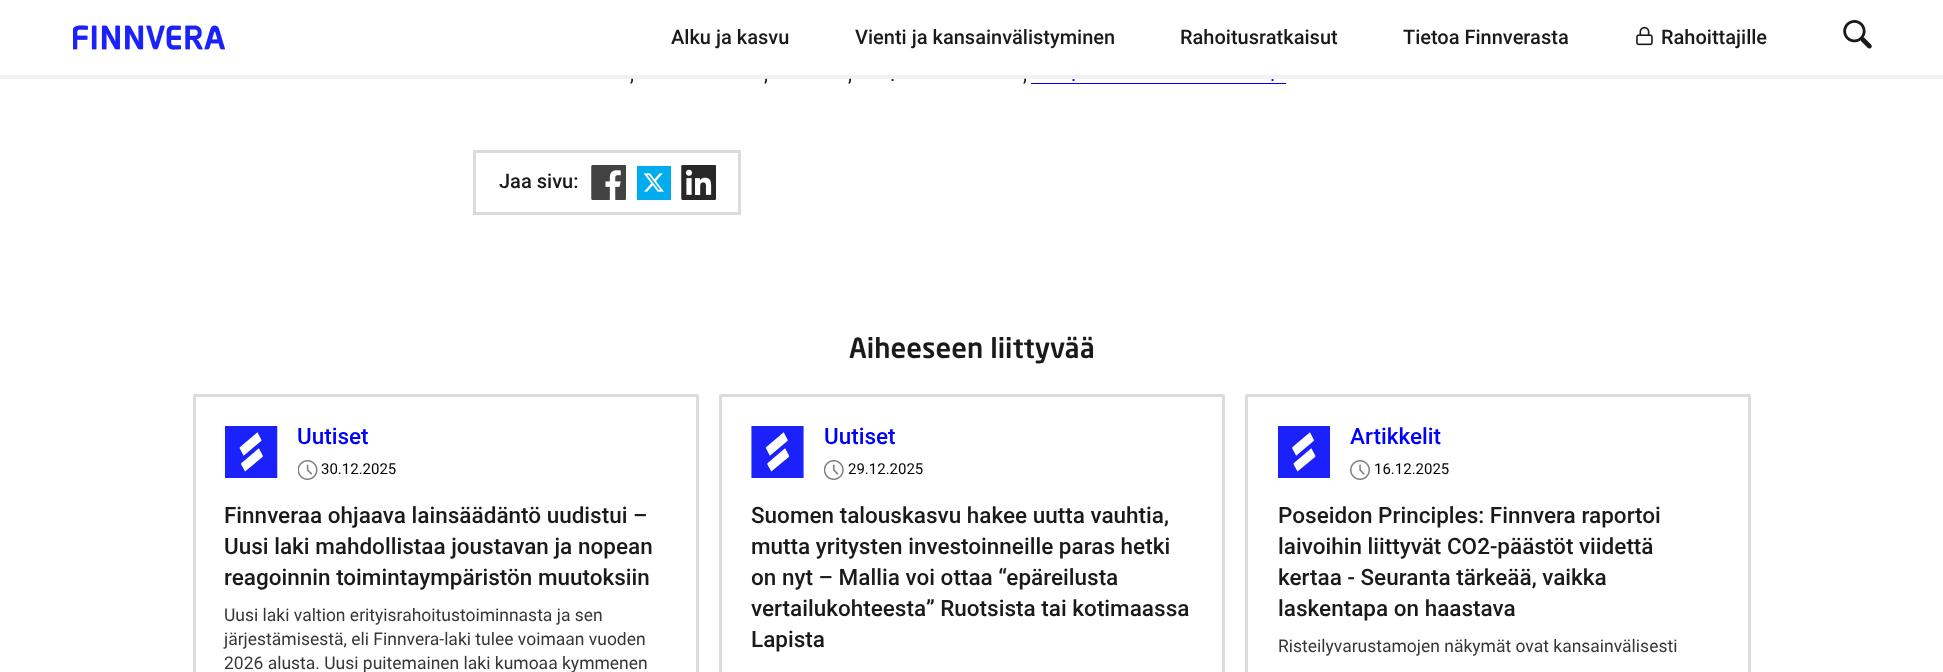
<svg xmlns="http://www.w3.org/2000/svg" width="1943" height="672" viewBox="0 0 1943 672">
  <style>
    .t1 { font: 500 20px Roboto; fill: #1a1a1a; }
    .t2 { font: 20px Roboto; fill: #1a1a1a; }
    .t3 { font: 20px Roboto; fill: #00e; }
    .t4 { font: 27.5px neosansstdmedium; fill: #1a1a1a; }
    .t5 { font: 500 22.5px Roboto; fill: #00f; }
    .t6 { font: 15px Roboto; fill: #000; }
    .t7 { font: 500 22.5px Roboto; fill: #1a1a1a; }
    .t8 { font: 17.5px Roboto; fill: #363636; }
  </style>
  <rect width="100%" height="100%" fill="#fff"/>
  <path d="M0 75V79H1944V4V75Z" fill="#0000000d"/>
  <image x="73" y="25" width="152" height="25" href="images/1.png"/>
  <text x="671" y="44" class="t1">Alku ja kasvu</text>
  <text x="855" y="44" class="t1">Vienti ja kansainvälistyminen</text>
  <text x="1180" y="44" class="t1">Rahoitusratkaisut</text>
  <text x="1403" y="44" class="t1">Tietoa Finnverasta</text>
  <image x="1636" y="26" width="17" height="20" href="images/2.png"/>
  <text x="1661" y="44" class="t1">Rahoittajille</text>
  <image x="1843" y="20" width="29" height="29" href="images/3.png"/>
  <text x="630" y="81" class="t2">,</text>
  <text x="764" y="81" class="t2">,</text>
  <text x="848" y="81" class="t2">,</text>
  <text x="890" y="81" class="t2">.</text>
  <text x="1023" y="81" class="t2">,</text>
  <text x="1071" y="81" class="t3">.</text>
  <rect x="1031" y="83" width="255" height="1" fill="#00e"/>
  <text x="1270" y="81" class="t3">.</text>
  <rect x="474.5" y="151.5" width="265" height="62" fill="none" stroke="#dbdbdb" stroke-width="3"/>
  <text x="499" y="188" class="t1">Jaa sivu:</text>
  <image x="591" y="165" width="35" height="35" href="images/4.png"/>
  <rect x="637" y="166" width="34" height="34" fill="#00acee"/>
  <image x="643" y="173" width="21" height="19" href="images/5.png"/>
  <image x="681" y="165" width="35" height="35" href="images/6.png"/>
  <text x="849" y="358" class="t4">Aiheeseen liittyvää</text>
  <rect x="194.5" y="395.5" width="503" height="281" rx="1" fill="none" stroke="#dbdbdb" stroke-width="3"/>
  <image x="225" y="426" width="53" height="52" href="images/7.png"/>
  <text x="297" y="444" class="t5">Uutiset</text>
  <image x="298" y="460" width="20" height="20" href="images/8.png"/>
  <text x="321" y="474" class="t6">30.12.2025</text>
  <text x="224" y="523" class="t7">Finnveraa ohjaava lainsäädäntö uudistui –</text>
  <text x="224" y="554" class="t7">Uusi laki mahdollistaa joustavan ja nopean</text>
  <text x="224" y="585" class="t7">reagoinnin toimintaympäristön muutoksiin</text>
  <text x="224" y="621" class="t8">Uusi laki valtion erityisrahoitustoiminnasta ja sen</text>
  <text x="224" y="645" class="t8">järjestämisestä, eli Finnvera-laki tulee voimaan vuoden</text>
  <text x="224" y="669" class="t8">2026 alusta. Uusi puitemainen laki kumoaa kymmenen</text>
  <rect x="720.5" y="395.5" width="503" height="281" rx="1" fill="none" stroke="#dbdbdb" stroke-width="3"/>
  <image x="751" y="426" width="53" height="52" href="images/9.png"/>
  <text x="824" y="444" class="t5">Uutiset</text>
  <image x="824" y="460" width="20" height="20" href="images/10.png"/>
  <text x="848" y="474" class="t6">29.12.2025</text>
  <text x="751" y="523" class="t7">Suomen talouskasvu hakee uutta vauhtia,</text>
  <text x="751" y="554" class="t7">mutta yritysten investoinneille paras hetki</text>
  <text x="751" y="585" class="t7">on nyt – Mallia voi ottaa “epäreilusta</text>
  <text x="751" y="616" class="t7">vertailukohteesta” Ruotsista tai kotimaassa</text>
  <text x="751" y="647" class="t7">Lapista</text>
  <rect x="1246.5" y="395.5" width="503" height="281" rx="1" fill="none" stroke="#dbdbdb" stroke-width="3"/>
  <image x="1278" y="426" width="52" height="52" href="images/11.png"/>
  <text x="1350" y="444" class="t5">Artikkelit</text>
  <image x="1350" y="460" width="20" height="20" href="images/12.png"/>
  <text x="1374" y="474" class="t6">16.12.2025</text>
  <text x="1278" y="523" class="t7">Poseidon Principles: Finnvera raportoi</text>
  <text x="1278" y="554" class="t7">laivoihin liittyvät CO2-päästöt viidettä</text>
  <text x="1278" y="585" class="t7">kertaa - Seuranta tärkeää, vaikka</text>
  <text x="1278" y="616" class="t7">laskentapa on haastava</text>
  <text x="1278" y="652" class="t8">Risteilyvarustamojen näkymät ovat kansainvälisesti</text>
</svg>
